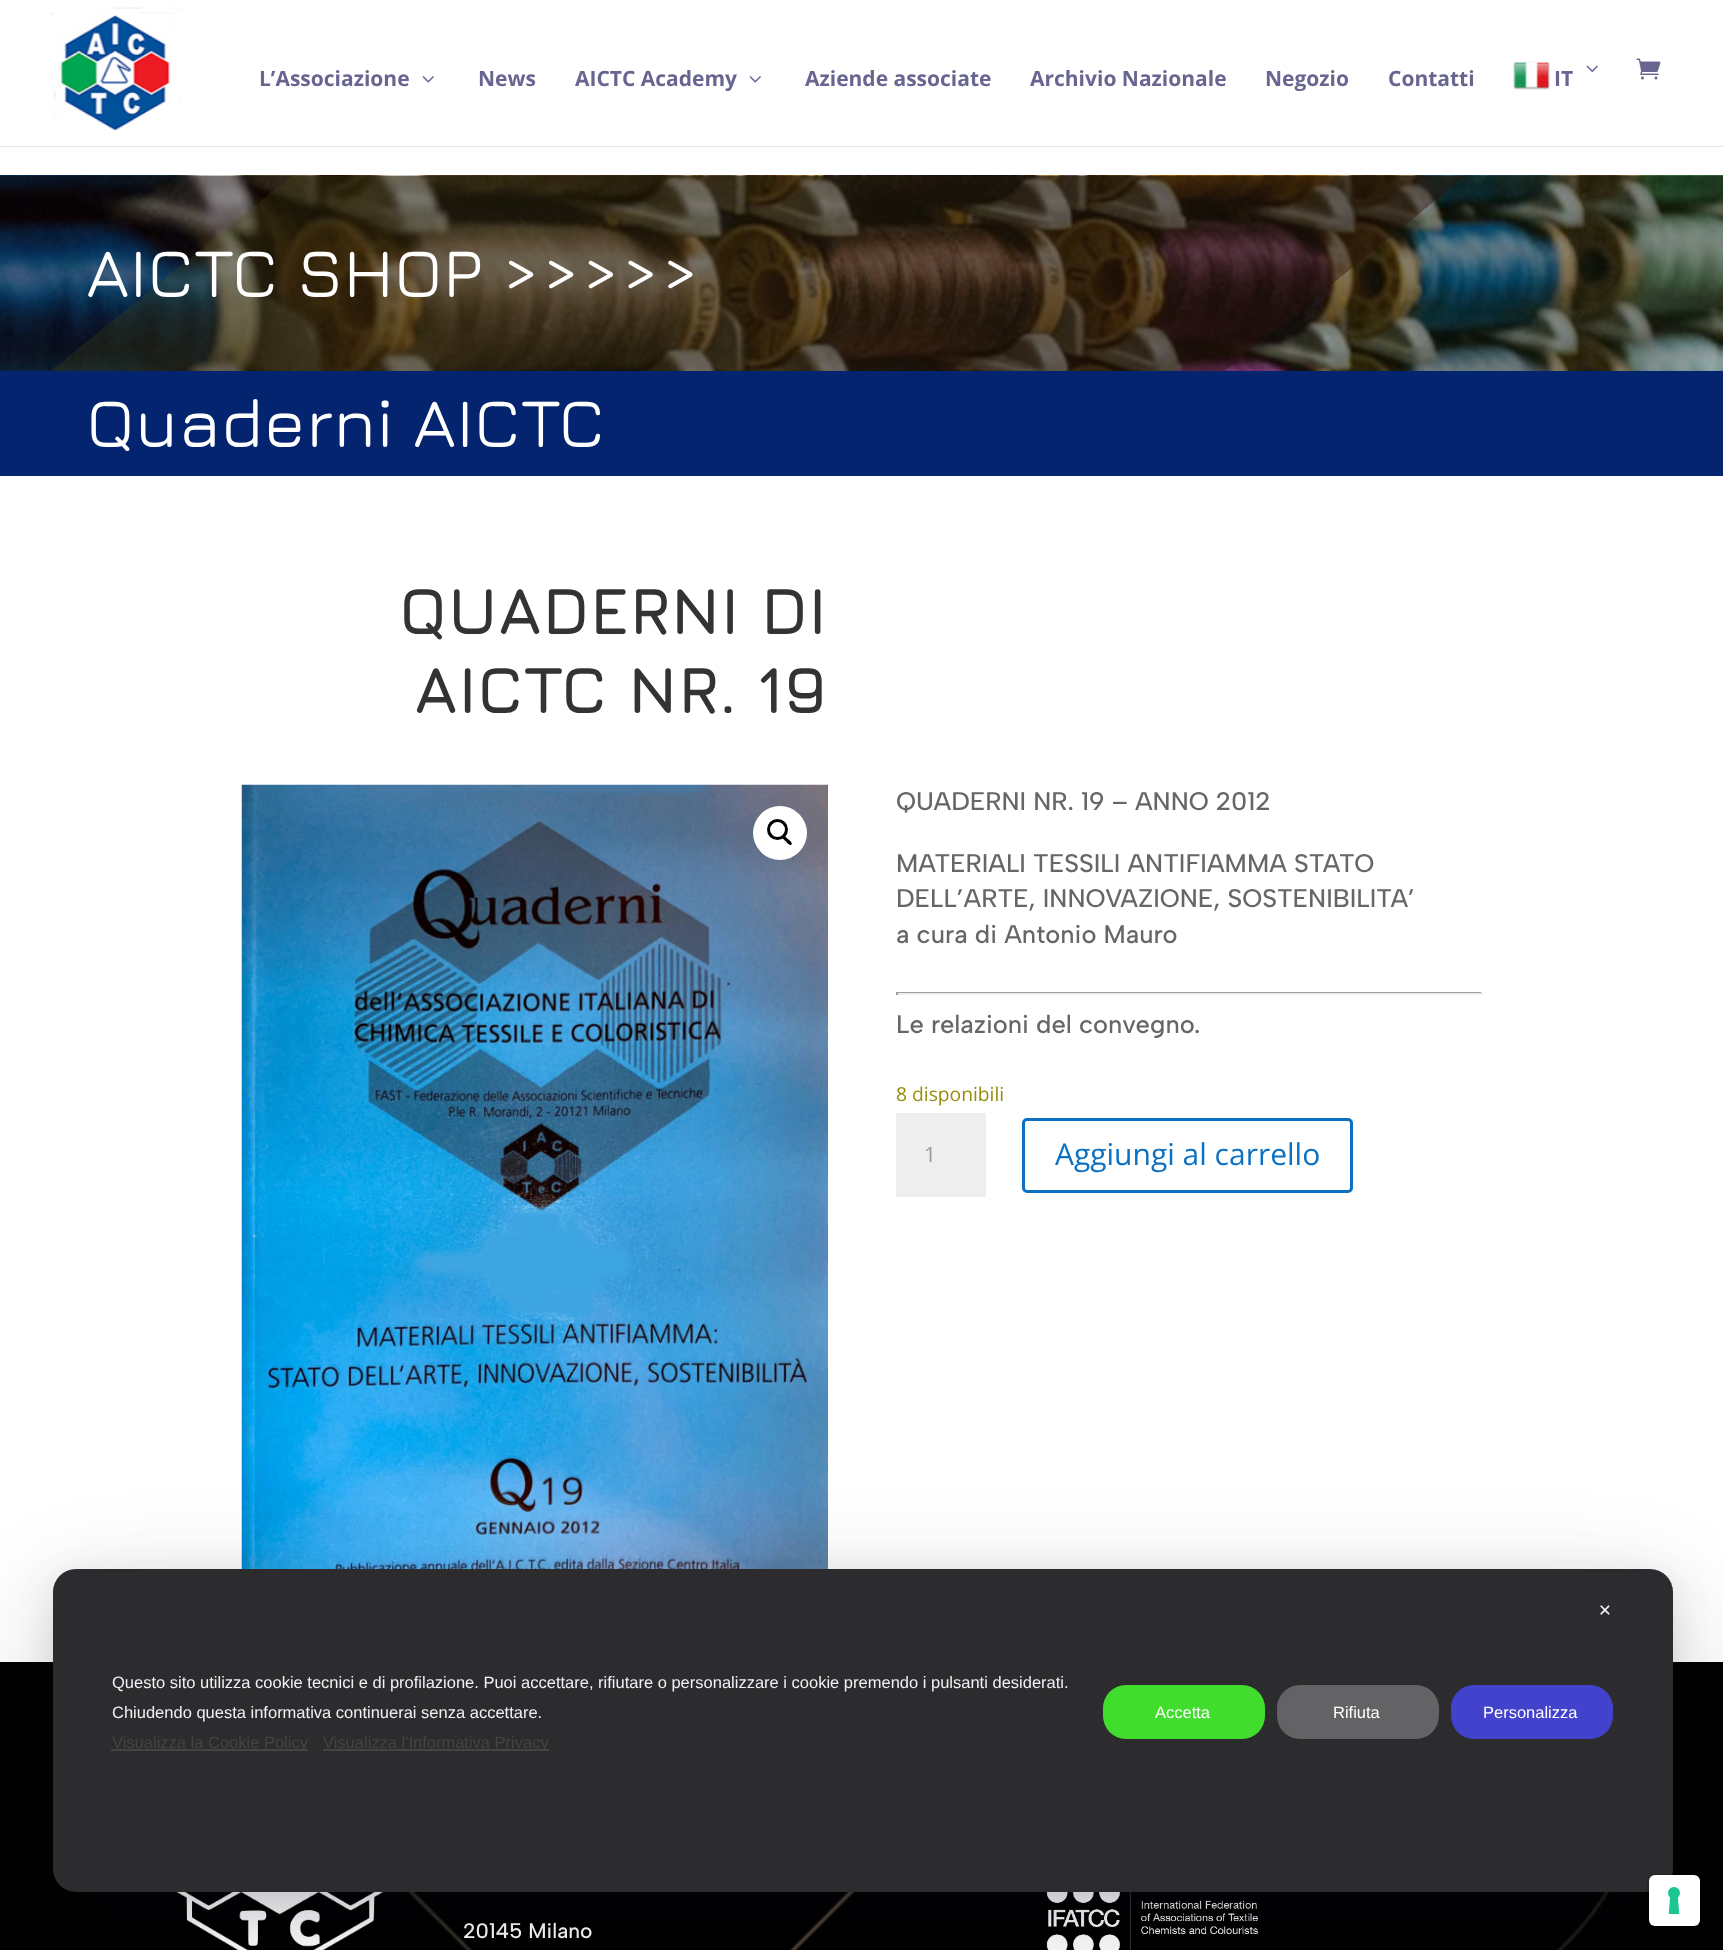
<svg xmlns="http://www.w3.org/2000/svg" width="1723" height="1950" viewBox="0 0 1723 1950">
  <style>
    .t1 { font: bold 21px Open Sans; fill: #686691; }
    .t2 { font: 500 69px Jura; fill: #fff; }
    .t3 { font: bold 66px Jura; fill: #333; }
    .t4 { font: 500 25.5px Albert Sans; fill: #666; }
    .t5 { font: 19.25px Open Sans; fill: #958e09; }
    .t6 { font: 21px Open Sans; fill: #999; }
    .t7 { font: 30px Open Sans; fill: #0c71c3; }
    .t8 { font: 500 21px Albert Sans; fill: #fff; }
    .t9 { font: 16.5px DejaVu Sans; fill: #f1f1f4; }
    .t10 { font: 16.5px Liberation Sans; fill: #f1f1f4; }
    .t11 { font: 16.5px Liberation Sans; fill: #444; }
    .t12 { font: 16.5px Liberation Sans; fill: #fff; }
  </style>
  <rect width="100%" height="100%" fill="#fff"/>
  <path d="M0 146V147H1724V2V146Z" fill="#e6e6e6"/>
  <image x="50" y="7" width="132" height="124" href="images/1.png"/>
  <text x="259" y="86" class="t1">L’Associazione</text>
  <image x="422" y="76" width="12" height="7" href="images/2.png"/>
  <text x="478" y="86" class="t1">News</text>
  <text x="575" y="86" class="t1">AICTC Academy</text>
  <image x="749" y="76" width="12" height="7" href="images/2.png"/>
  <text x="805" y="86" class="t1">Aziende associate</text>
  <text x="1030" y="86" class="t1">Archivio Nazionale</text>
  <text x="1265" y="86" class="t1">Negozio</text>
  <text x="1388" y="86" class="t1">Contatti</text>
  <image x="1513" y="61" width="37" height="29" href="images/3.png"/>
  <image x="1586" y="65" width="12" height="7" href="images/4.png"/>
  <text x="1554" y="86" class="t1">IT</text>
  <image x="1636" y="58" width="25" height="22" href="images/5.png"/>
  <image x="0" y="175" width="1723" height="196" href="images/6.png"/>
  <text x="86" y="297" class="t2">AICTC SHOP &gt;&gt;&gt;&gt;&gt;</text>
  <rect x="0" y="371" width="1723" height="105" fill="#042470"/>
  <text x="86" y="447" class="t2">Quaderni AICTC</text>
  <text x="399" y="634" class="t3">QUADERNI DI</text>
  <text x="414" y="713" class="t3">AICTC NR. 19</text>
  <image x="241" y="784" width="587" height="785" href="images/7.png"/>
  <circle cx="780" cy="833" r="27" fill="#fff"/>
  <circle cx="777.5" cy="829.5" r="9" fill="none" stroke="#000" stroke-width="3"/>
  <path d="M783 836C784.5 834.5 787 838.5 788 839C789 840 793 843 791.5 844.5C789.5 846.5 787 842.5 786 841.5C785 840.5 781 838 783 836Z" fill="#000"/>
  <text x="896" y="810" class="t4">QUADERNI NR. 19 – ANNO 2012</text>
  <text x="896" y="872" class="t4">MATERIALI TESSILI ANTIFIAMMA STATO</text>
  <text x="896" y="907" class="t4">DELL’ARTE, INNOVAZIONE, SOSTENIBILITA’</text>
  <text x="896" y="943" class="t4">a cura di Antonio Mauro</text>
  <rect x="896" y="992" width="586" height="1" fill="#9f9f9f"/>
  <rect x="1481" y="992" width="2" height="3" fill="#eee"/>
  <rect x="896" y="993" width="586" height="2" fill="#eee"/>
  <rect x="896" y="992" width="2" height="3" fill="#9f9f9f"/>
  <text x="896" y="1033" class="t4">Le relazioni del convegno.</text>
  <text x="896" y="1101" class="t5">8 disponibili</text>
  <rect x="896" y="1113" width="90" height="84" fill="#eee"/>
  <text x="924" y="1162" class="t6">1</text>
  <rect x="1023.5" y="1119.5" width="328" height="72" rx="3.5" fill="none" stroke="#0c71c3" stroke-width="3"/>
  <text x="1055" y="1165" class="t7">Aggiungi al carrello</text>
  <rect x="0" y="1662" width="1723" height="288" fill="#000"/>
  <image x="407" y="1892" width="1203" height="58" href="images/8.png"/>
  <image x="176" y="1892" width="208" height="58" href="images/9.png"/>
  <text x="463" y="1938" class="t8">20145 Milano</text>
  <image x="1046" y="1892" width="213" height="58" href="images/10.png"/>
  <rect x="53" y="1605" width="1620" height="323" rx="23" fill="#11111a1a" filter="blur(60px)"/>
  <rect x="53" y="1593" width="1620" height="323" rx="23" fill="#11111a1a" filter="blur(42px)"/>
  <rect x="53" y="1581" width="1620" height="323" rx="23" fill="#11111a1a" filter="blur(18px)"/>
  <rect x="53" y="1569" width="1620" height="323" rx="23" fill="#2c2c2e"/>
  <text x="1598" y="1616" class="t9">✕</text>
  <text x="112" y="1688" class="t10">Questo sito utilizza cookie tecnici e di profilazione. Puoi accettare, rifiutare o personalizzare i cookie premendo i pulsanti desiderati.</text>
  <text x="112" y="1718" class="t10">Chiudendo questa informativa continuerai senza accettare.</text>
  <rect x="111" y="1749" width="197" height="2" fill="#444"/>
  <text x="112" y="1748" class="t11">Visualizza la Cookie Policy</text>
  <rect x="323" y="1749" width="226" height="2" fill="#444"/>
  <text x="323" y="1748" class="t11">Visualizza l'Informativa Privacy</text>
  <rect x="1103" y="1685" width="162" height="54" rx="23" fill="#41dd2c"/>
  <text x="1155" y="1718" class="t12">Accetta</text>
  <rect x="1277" y="1685" width="162" height="54" rx="23" fill="#636366"/>
  <text x="1333" y="1718" class="t12">Rifiuta</text>
  <rect x="1451" y="1685" width="162" height="54" rx="23" fill="#4242cd"/>
  <text x="1483" y="1718" class="t12">Personalizza</text>
  <rect x="1648" y="1875" width="52" height="52" rx="7" fill="none" stroke="#00000026" stroke-width="2"/>
  <rect x="1649" y="1875" width="51" height="51" rx="6" fill="#fff"/>
  <image x="1668" y="1887" width="12" height="27" href="images/11.png"/>
</svg>
